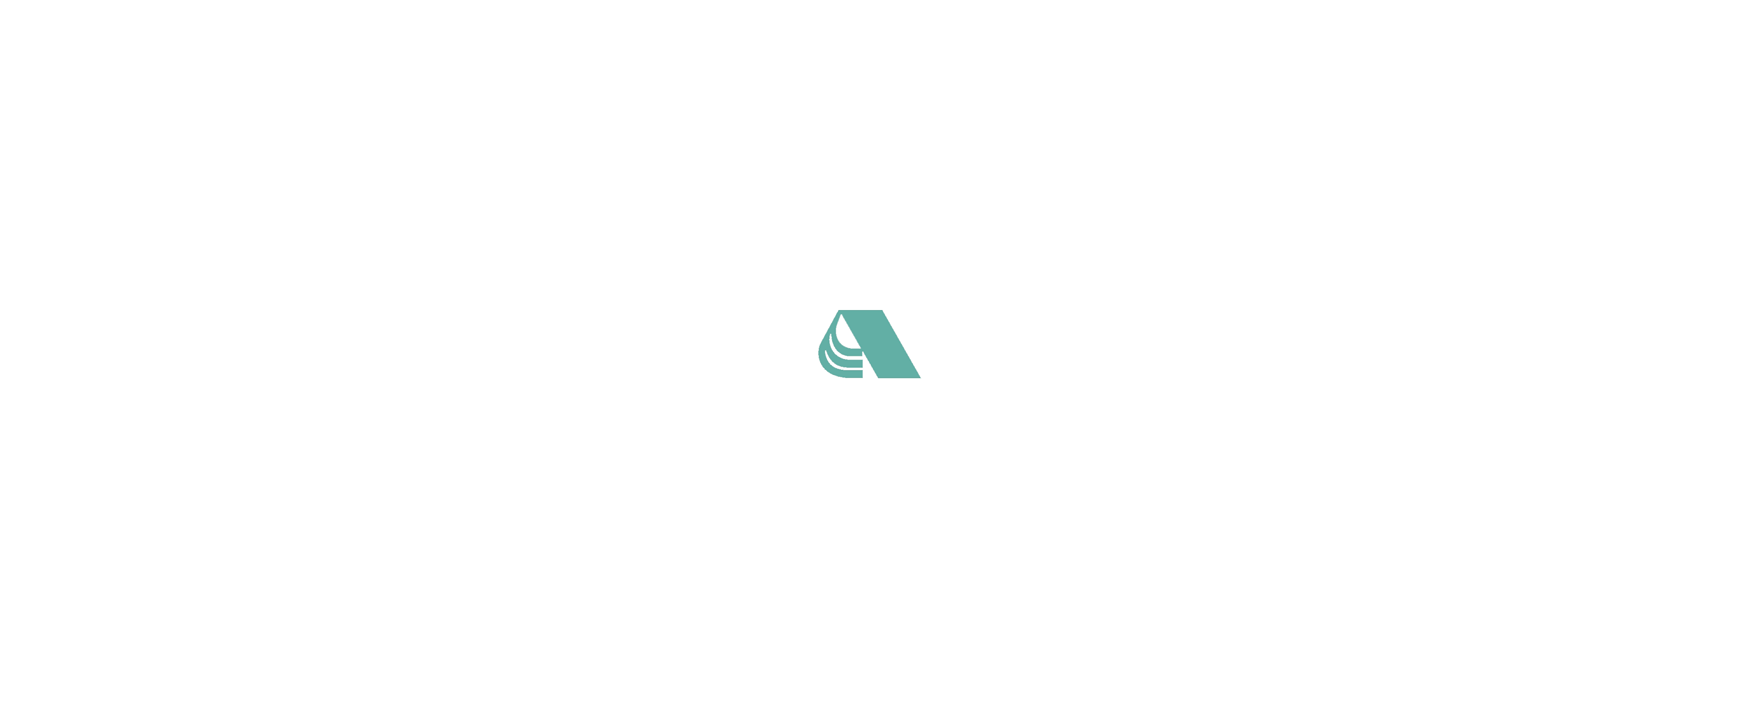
<svg xmlns="http://www.w3.org/2000/svg" width="1747" height="723" viewBox="0 0 1747 723">
  <rect width="100%" height="100%" fill="#fff"/>
  <image x="818" y="309" width="104" height="70" href="images/1.png"/>
</svg>
